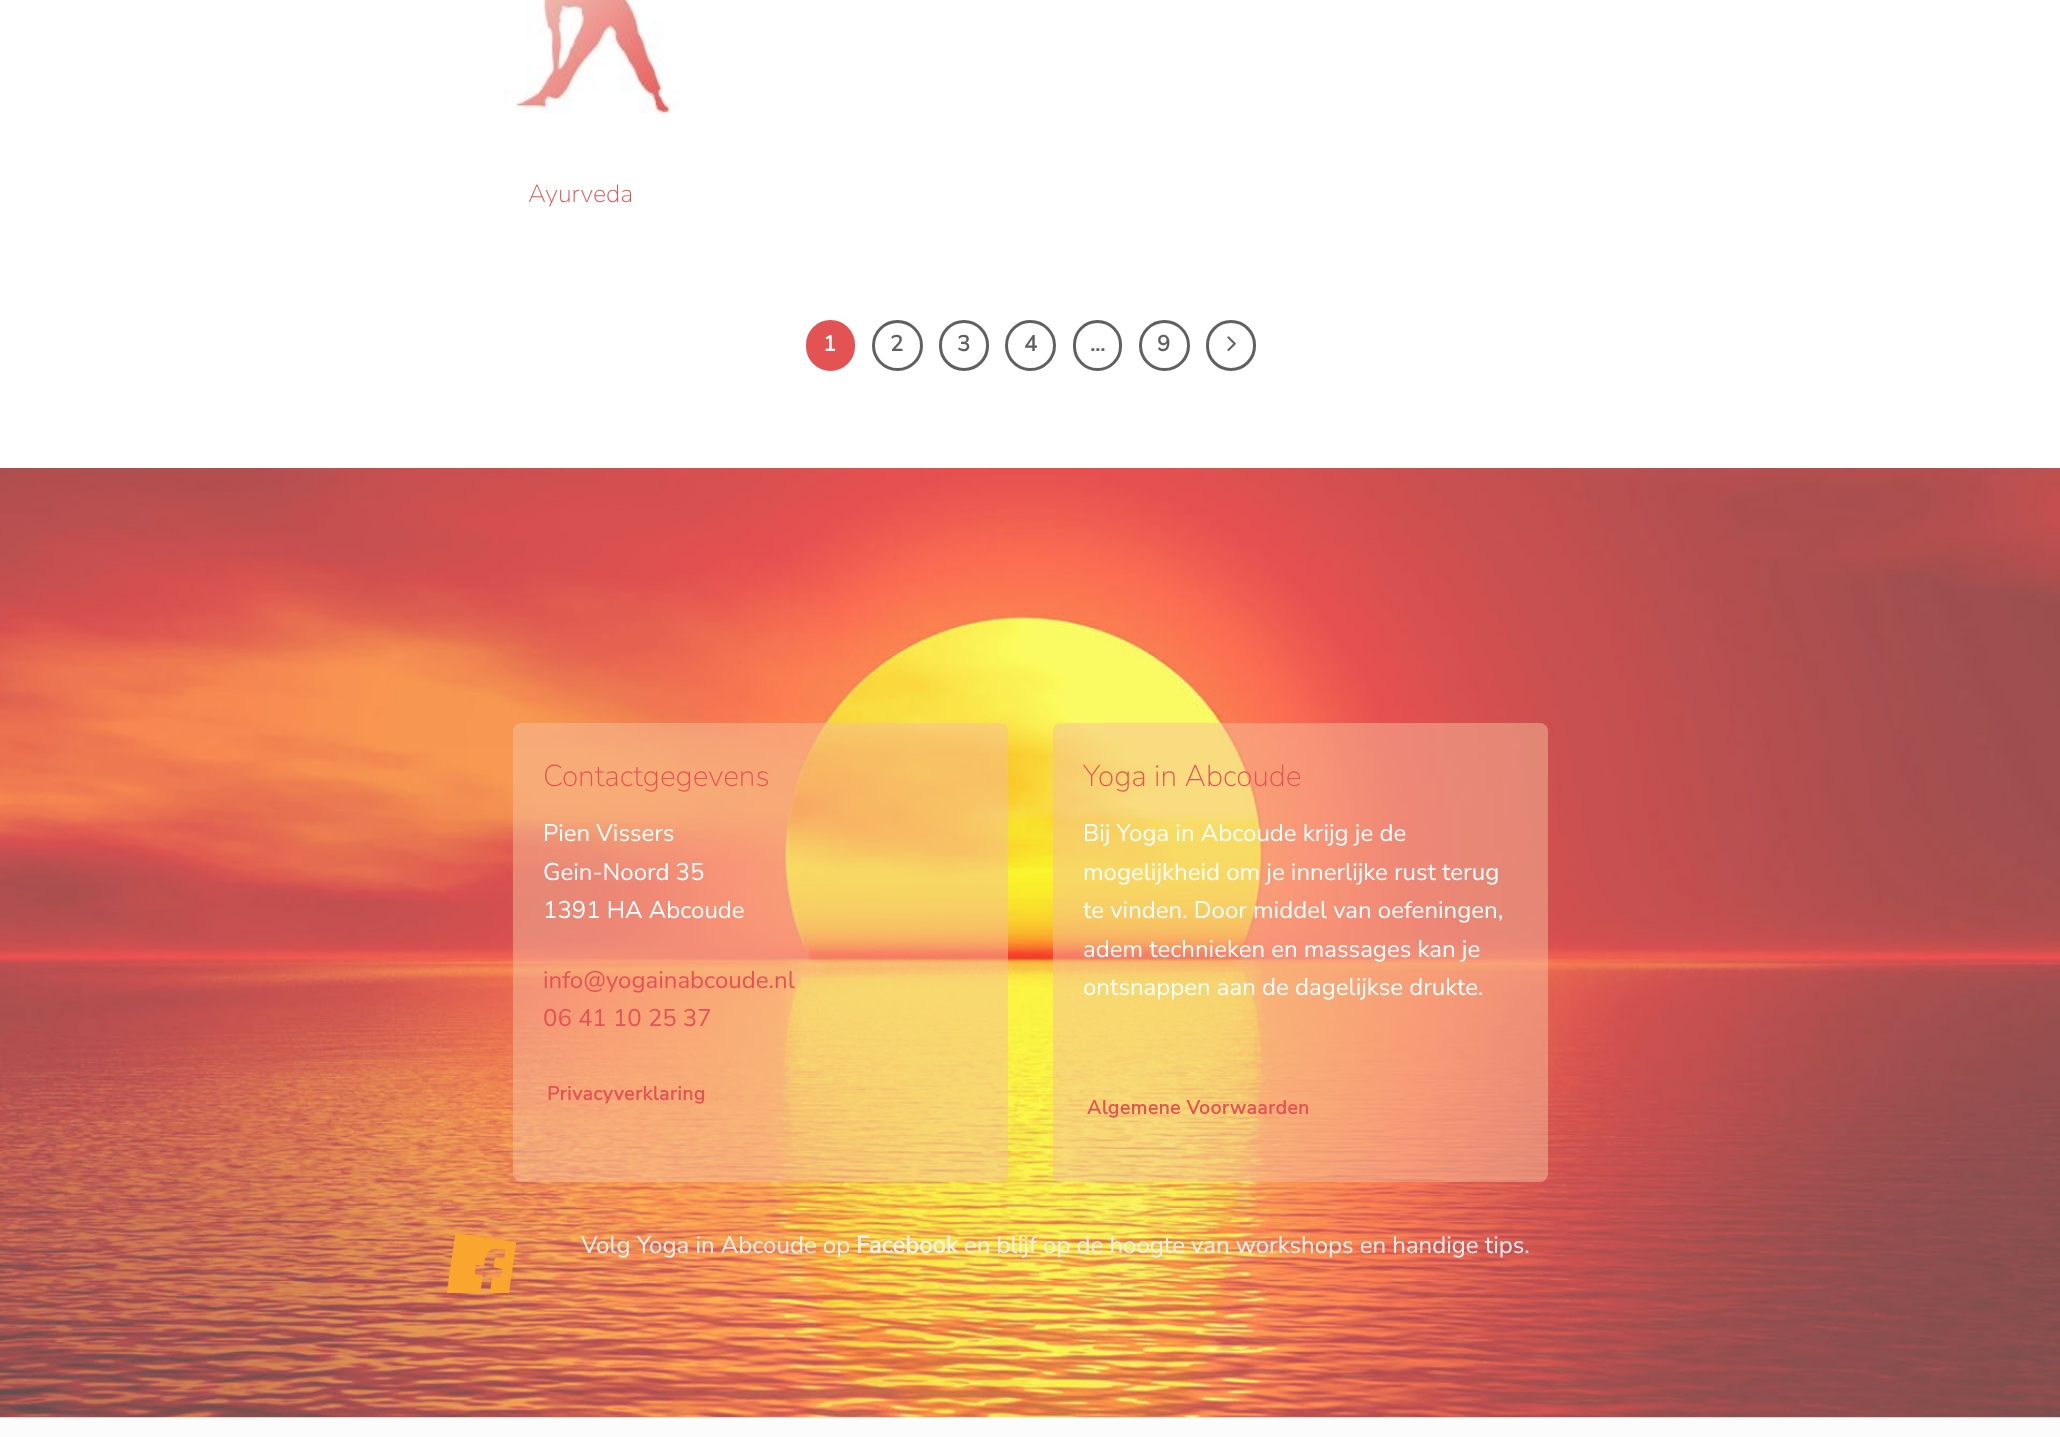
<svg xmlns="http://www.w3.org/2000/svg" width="2060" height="1437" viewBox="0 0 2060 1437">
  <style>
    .t1 { font: 200 25px Nunito Sans; fill: #e45354; }
    .t2 { font: bold 22px Nunito Sans; fill: #fff; }
    .t3 { font: bold 22px Nunito Sans; fill: #606060; }
    .t4 { font: 200 30px Nunito Sans; fill: #e45354; }
    .t5 { font: 24px Nunito Sans; fill: #fff; }
    .t6 { font: 24px Nunito Sans; fill: #e45354; }
    .t7 { font: bold 19.25px Nunito Sans; letter-spacing: 0.6px; fill: #e45354; }
    .t8 { font: 24px Nunito Sans; fill: #f1f1f1; }
    .t9 { font: bold 24px Nunito Sans; fill: #f1f1f1; }
  </style>
  <rect width="100%" height="100%" fill="#fff"/>
  <image x="504" y="0" width="176" height="114" href="images/1.png"/>
  <text x="528" y="202" class="t1">Ayurveda</text>
  <rect x="807.5" y="321.5" width="46" height="48" rx="23" fill="#e45354" stroke="#e45354" stroke-width="3"/>
  <text x="823" y="351" class="t2">1</text>
  <circle cx="897.5" cy="345.5" r="24" fill="none" stroke="#606060" stroke-width="3"/>
  <text x="890" y="351" class="t3">2</text>
  <rect x="940.5" y="321.5" width="47" height="48" rx="23.5" fill="none" stroke="#606060" stroke-width="3"/>
  <text x="957" y="351" class="t3">3</text>
  <circle cx="1030.5" cy="345.5" r="24" fill="none" stroke="#606060" stroke-width="3"/>
  <text x="1024" y="351" class="t3">4</text>
  <rect x="1074.5" y="321.5" width="46" height="48" rx="23" fill="none" stroke="#606060" stroke-width="3"/>
  <text x="1090" y="351" class="t3">…</text>
  <circle cx="1164.5" cy="345.5" r="24" fill="none" stroke="#606060" stroke-width="3"/>
  <text x="1157" y="351" class="t3">9</text>
  <rect x="1207.5" y="321.5" width="47" height="48" rx="23.5" fill="none" stroke="#606060" stroke-width="3"/>
  <image x="1227" y="336" width="9" height="16" href="images/2.png"/>
  <image x="0" y="468" width="2060" height="950" href="images/3.png"/>
  <rect x="513" y="723" width="495" height="459" rx="8" fill="#f5be9b80"/>
  <text x="543" y="786" class="t4">Contactgegevens</text>
  <text x="543" y="841" class="t5">Pien Vissers</text>
  <text x="543" y="880" class="t5">Gein-Noord 35</text>
  <text x="543" y="918" class="t5">1391 HA Abcoude</text>
  <text x="543" y="988" class="t6">info@yogainabcoude.nl</text>
  <text x="543" y="1026" class="t6">06 41 10 25 37</text>
  <text x="547" y="1100" class="t7">Privacyverklaring</text>
  <rect x="1053" y="723" width="495" height="459" rx="8" fill="#f5be9b80"/>
  <text x="1083" y="786" class="t4">Yoga in Abcoude</text>
  <text x="1083" y="841" class="t5">Bij Yoga in Abcoude krijg je de</text>
  <text x="1083" y="880" class="t5">mogelijkheid om je innerlijke rust terug</text>
  <text x="1083" y="918" class="t5">te vinden. Door middel van oefeningen,</text>
  <text x="1083" y="957" class="t5">adem technieken en massages kan je</text>
  <text x="1083" y="995" class="t5">ontsnappen aan de dagelijkse drukte.</text>
  <text x="1087" y="1114" class="t7">Algemene Voorwaarden</text>
  <image x="446" y="1233" width="71" height="60" href="images/4.png"/>
  <text x="581" y="1253" class="t8">Volg Yoga in Abcoude op</text>
  <text x="856" y="1253" class="t9">Facebook</text>
  <text x="964" y="1253" class="t8">en blijf op de hoogte van workshops en handige tips.</text>
  <rect x="0" y="1418" width="2060" height="19" fill="#fcfcfc"/>
</svg>
